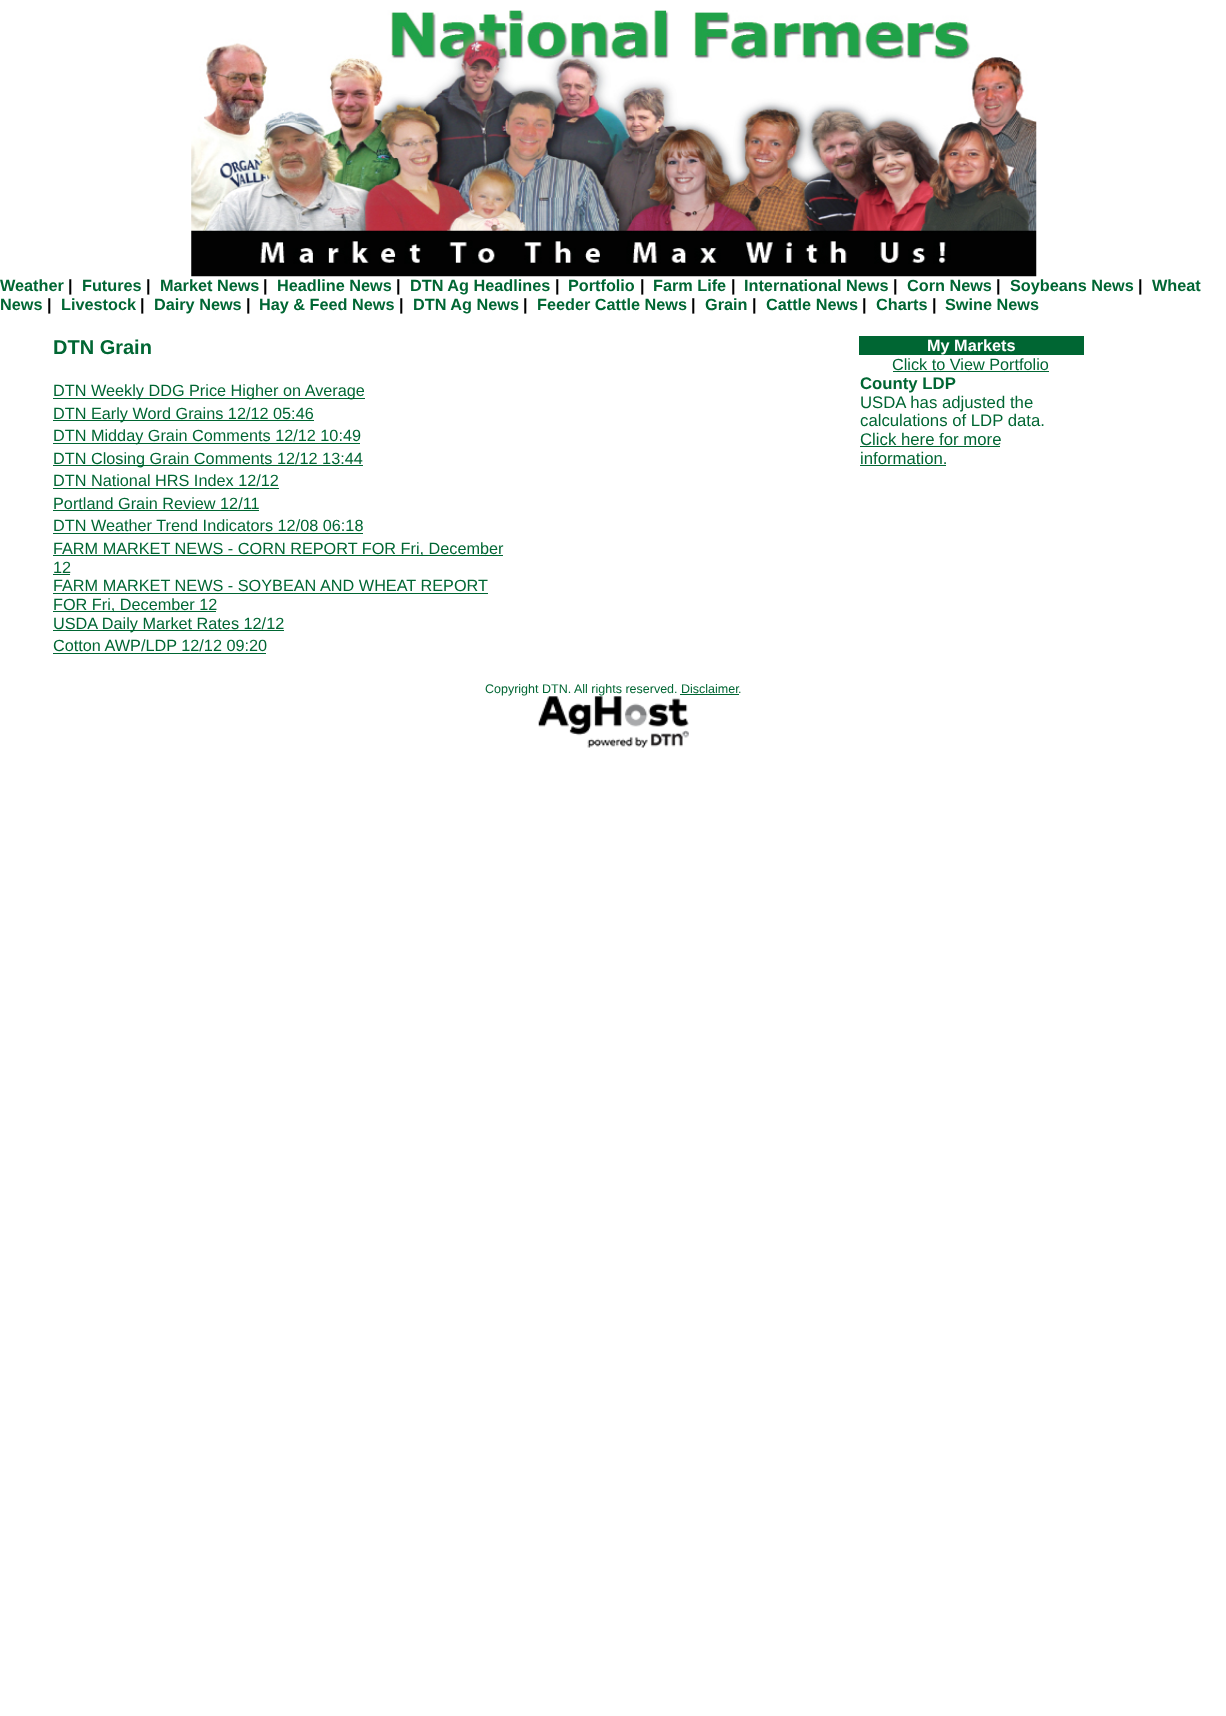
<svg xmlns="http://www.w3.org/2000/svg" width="1226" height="1716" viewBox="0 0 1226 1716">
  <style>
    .t1 { font: bold 16.25px Liberation Sans; fill: #063; }
    .t2 { font: bold 16.25px Liberation Sans; fill: #000; }
    .t3 { font: bold 20px Liberation Sans; fill: #063; }
    .t4 { font: 16.25px Liberation Sans; fill: #063; }
    .t5 { font: bold 16.25px Liberation Sans; fill: #fff; }
    .t6 { font: bold 16.75px Liberation Sans; fill: #063; }
    .t7 { font: 16.75px Liberation Sans; fill: #063; }
    .t8 { font: 12.5px Liberation Sans; fill: #063; }
  </style>
  <rect width="100%" height="100%" fill="#fff"/>
  <image x="191" y="10" width="846" height="267" href="images/1.png"/>
  <text x="0" y="291" class="t1">Weather</text>
  <text x="68" y="291" class="t2">|</text>
  <text x="82" y="291" class="t1">Futures</text>
  <text x="146" y="291" class="t2">|</text>
  <text x="160" y="291" class="t1">Market News</text>
  <text x="263" y="291" class="t2">|</text>
  <text x="277" y="291" class="t1">Headline News</text>
  <text x="396" y="291" class="t2">|</text>
  <text x="410" y="291" class="t1">DTN Ag Headlines</text>
  <text x="555" y="291" class="t2">|</text>
  <text x="568" y="291" class="t1">Portfolio</text>
  <text x="640" y="291" class="t2">|</text>
  <text x="653" y="291" class="t1">Farm Life</text>
  <text x="731" y="291" class="t2">|</text>
  <text x="744" y="291" class="t1">International News</text>
  <text x="893" y="291" class="t2">|</text>
  <text x="907" y="291" class="t1">Corn News</text>
  <text x="996" y="291" class="t2">|</text>
  <text x="1010" y="291" class="t1">Soybeans News</text>
  <text x="1138" y="291" class="t2">|</text>
  <text x="1152" y="291" class="t1">Wheat</text>
  <text x="0" y="310" class="t1">News</text>
  <text x="47" y="310" class="t2">|</text>
  <text x="61" y="310" class="t1">Livestock</text>
  <text x="140" y="310" class="t2">|</text>
  <text x="154" y="310" class="t1">Dairy News</text>
  <text x="246" y="310" class="t2">|</text>
  <text x="259" y="310" class="t1">Hay &amp; Feed News</text>
  <text x="399" y="310" class="t2">|</text>
  <text x="413" y="310" class="t1">DTN Ag News</text>
  <text x="523" y="310" class="t2">|</text>
  <text x="537" y="310" class="t1">Feeder Cattle News</text>
  <text x="691" y="310" class="t2">|</text>
  <text x="705" y="310" class="t1">Grain</text>
  <text x="752" y="310" class="t2">|</text>
  <text x="766" y="310" class="t1">Cattle News</text>
  <text x="862" y="310" class="t2">|</text>
  <text x="876" y="310" class="t1">Charts</text>
  <text x="932" y="310" class="t2">|</text>
  <text x="945" y="310" class="t1">Swine News</text>
  <text x="53" y="354" class="t3">DTN Grain</text>
  <rect x="53" y="398" width="312" height="1" fill="#063"/>
  <text x="53" y="396" class="t4">DTN Weekly DDG Price Higher on Average</text>
  <rect x="53" y="420" width="261" height="1" fill="#063"/>
  <text x="53" y="419" class="t4">DTN Early Word Grains 12/12 05:46</text>
  <rect x="53" y="443" width="307" height="1" fill="#063"/>
  <text x="53" y="441" class="t4">DTN Midday Grain Comments 12/12 10:49</text>
  <rect x="53" y="465" width="310" height="1" fill="#063"/>
  <text x="53" y="464" class="t4">DTN Closing Grain Comments 12/12 13:44</text>
  <text x="53" y="486" class="t4">DTN National HRS Index 12/12</text>
  <rect x="53" y="488" width="226" height="1" fill="#063"/>
  <text x="53" y="509" class="t4">Portland Grain Review 12/11</text>
  <rect x="53" y="510" width="206" height="1" fill="#063"/>
  <text x="53" y="531" class="t4">DTN Weather Trend Indicators 12/08 06:18</text>
  <rect x="53" y="533" width="310" height="1" fill="#063"/>
  <rect x="53" y="555" width="450" height="1" fill="#063"/>
  <text x="53" y="554" class="t4">FARM MARKET NEWS - CORN REPORT FOR Fri, December</text>
  <text x="53" y="573" class="t4">12</text>
  <rect x="53" y="574" width="17" height="1" fill="#063"/>
  <text x="53" y="591" class="t4">FARM MARKET NEWS - SOYBEAN AND WHEAT REPORT</text>
  <rect x="53" y="593" width="435" height="1" fill="#063"/>
  <rect x="53" y="611" width="163" height="1" fill="#063"/>
  <text x="53" y="610" class="t4">FOR Fri, December 12</text>
  <rect x="53" y="630" width="231" height="1" fill="#063"/>
  <text x="53" y="629" class="t4">USDA Daily Market Rates 12/12</text>
  <text x="53" y="651" class="t4">Cotton AWP/LDP 12/12 09:20</text>
  <rect x="53" y="653" width="213" height="1" fill="#063"/>
  <rect x="859" y="336" width="225" height="19" fill="#063"/>
  <text x="927" y="351" class="t5">My Markets</text>
  <text x="892" y="370" class="t4">Click to View Portfolio</text>
  <rect x="893" y="371" width="156" height="1" fill="#063"/>
  <text x="860" y="389" class="t6">County LDP</text>
  <text x="860" y="408" class="t7">USDA has adjusted the</text>
  <text x="860" y="426" class="t7">calculations of LDP data.</text>
  <text x="860" y="445" class="t7">Click here for more</text>
  <rect x="860" y="446" width="140" height="1" fill="#063"/>
  <text x="860" y="464" class="t7">information.</text>
  <rect x="860" y="465" width="86" height="1" fill="#063"/>
  <text x="485" y="693" class="t8">Copyright DTN.</text>
  <text x="574" y="693" class="t8">All rights reserved. Disclaimer</text>
  <text x="738" y="693" class="t8">.</text>
  <rect x="680" y="694" width="59" height="1" fill="#063"/>
  <image x="538" y="696" width="151" height="52" href="images/2.png"/>
</svg>
